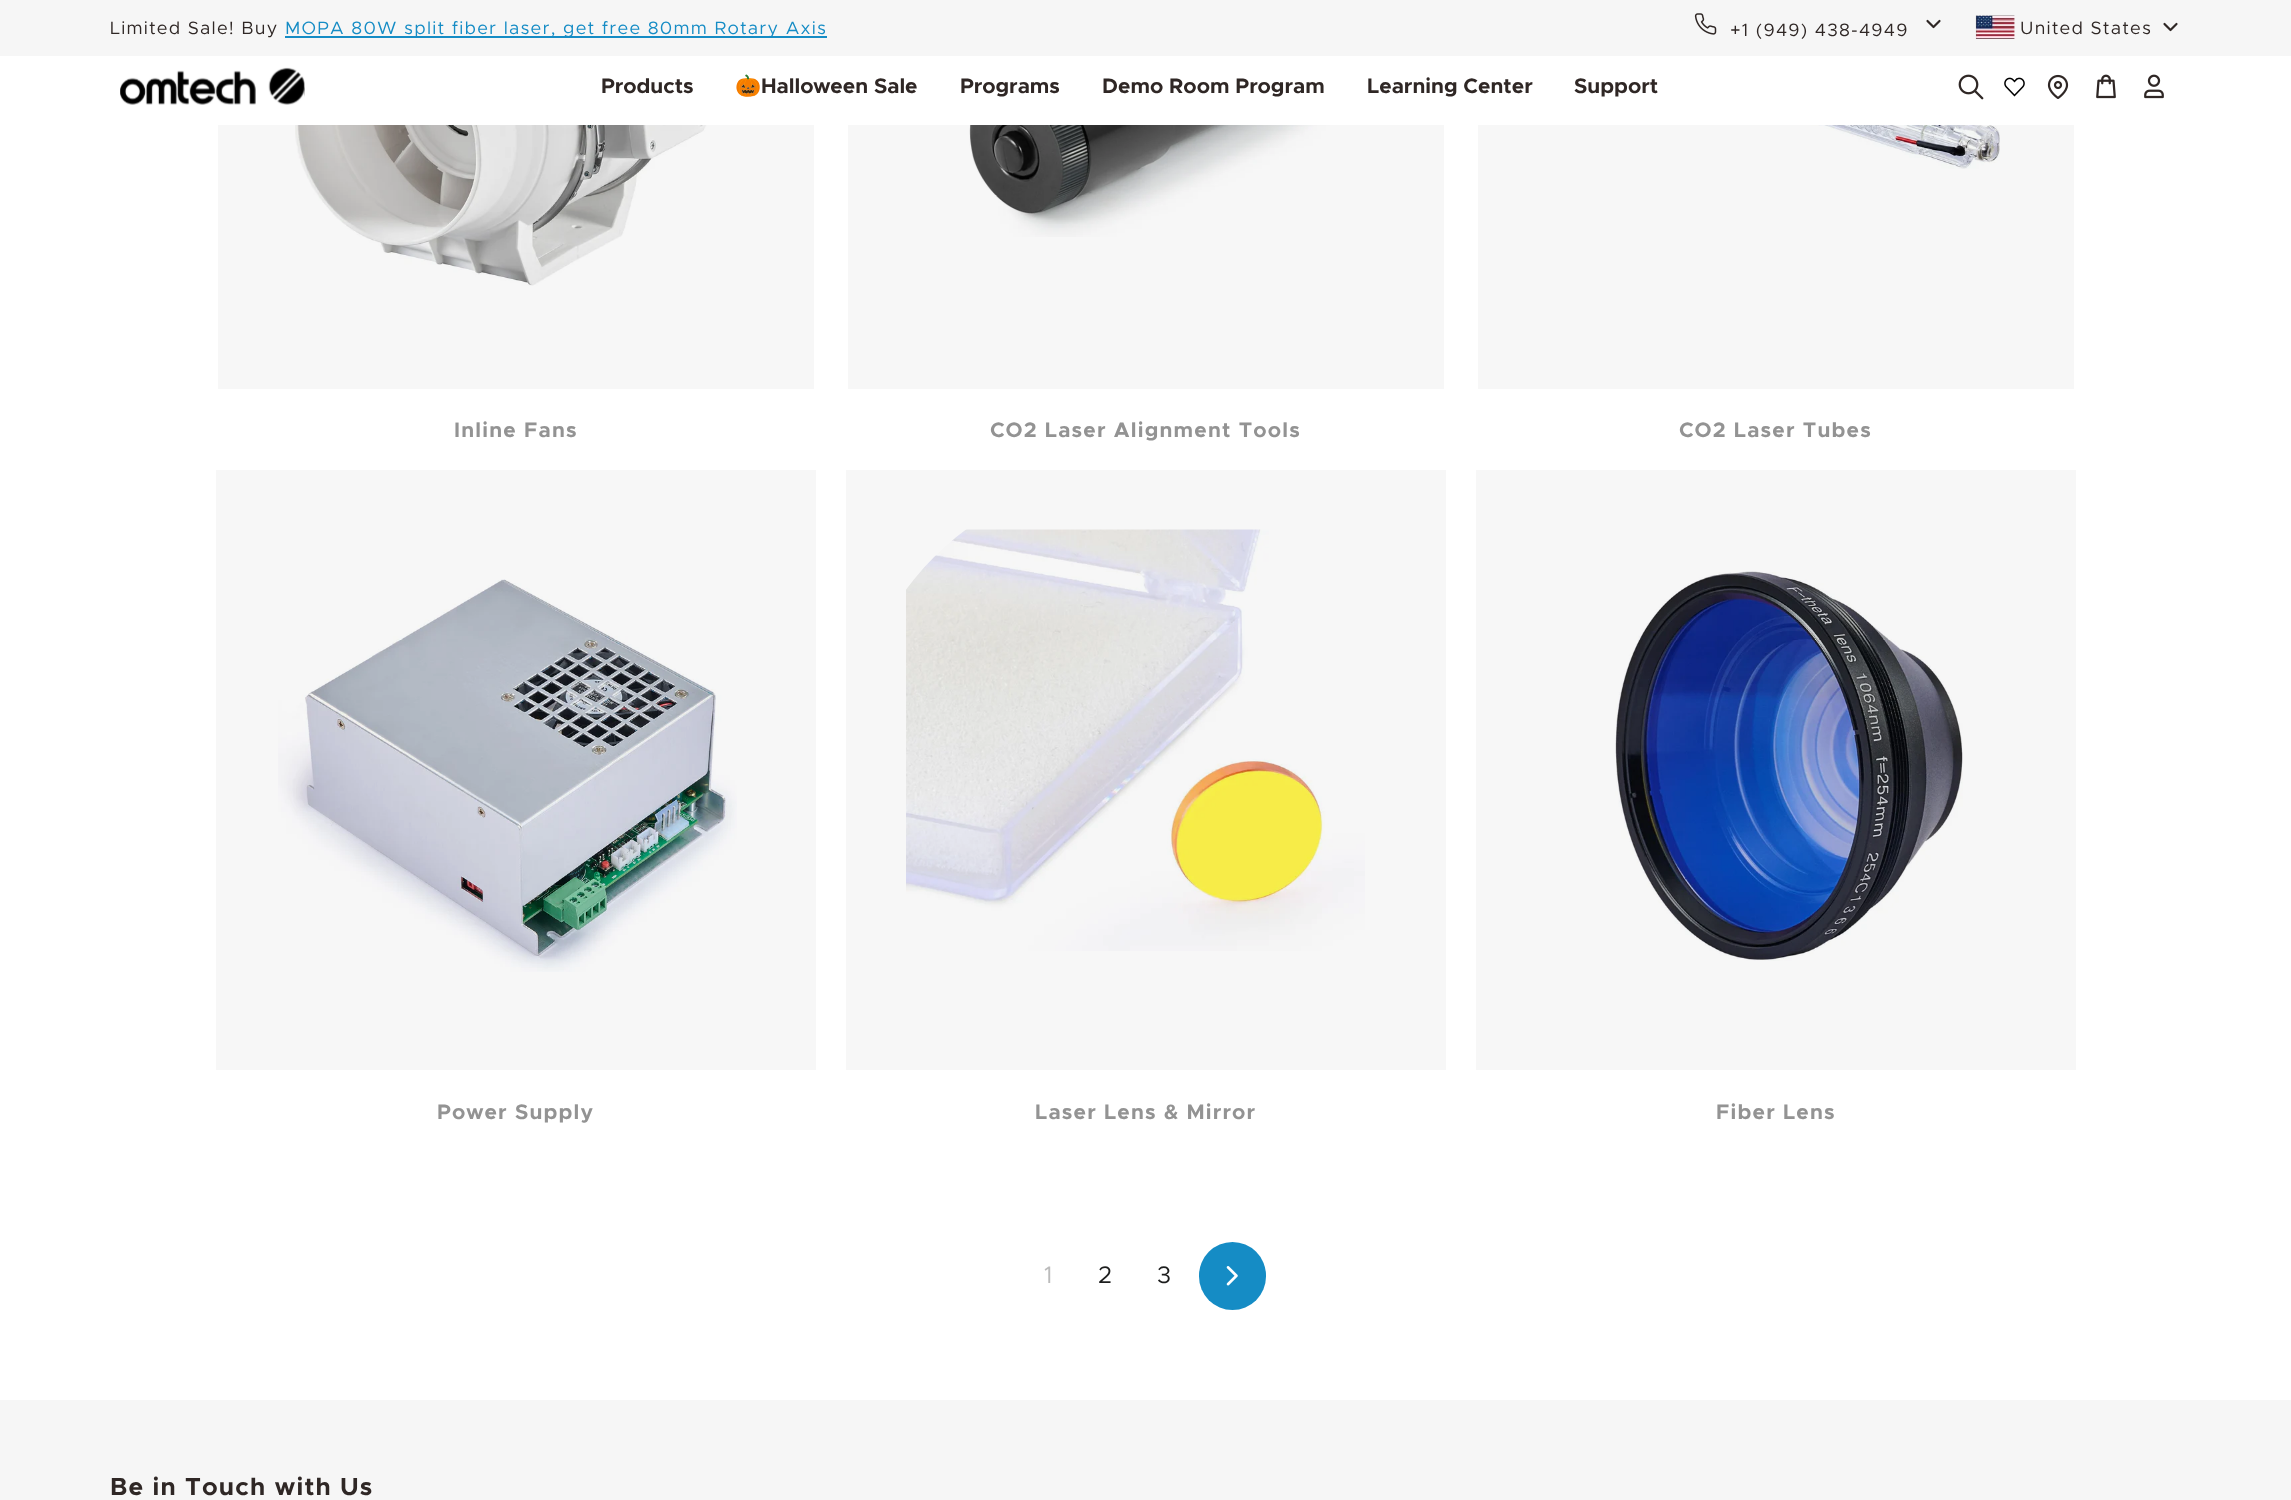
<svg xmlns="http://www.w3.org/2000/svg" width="2291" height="1500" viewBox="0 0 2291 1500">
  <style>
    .t1 { font: 18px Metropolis; letter-spacing: 1.2px; fill: #2f2725; }
    .t2 { font: 18px Metropolis; letter-spacing: 1.2px; fill: #158cc5; }
    .t3 { font: bold 21px Metropolis; fill: #2f2725; }
    .t4 { font: bold 21px Noto Color Emoji; fill: #2f2725; }
    .t5 { font: bold 21px Metropolis; letter-spacing: 1.2px; fill: #939393; }
    .t6 { font: 24px Metropolis; letter-spacing: 1.2px; fill: #bbb; }
    .t7 { font: 24px Metropolis; letter-spacing: 1.2px; fill: #1c1d1d; }
    .t8 { font: bold 24.75px Metropolis; letter-spacing: 1.2px; fill: #2f2725; }
  </style>
  <rect width="100%" height="100%" fill="#fff"/>
  <rect x="0" y="0" width="2291" height="56" fill="#f6f6f6"/>
  <text x="110" y="34" class="t1">Limited Sale! Buy</text>
  <rect x="285" y="36" width="542" height="2" fill="#158cc5"/>
  <text x="285" y="34" class="t2">MOPA 80W split fiber laser, get free 80mm Rotary Axis</text>
  <image x="1694" y="13" width="23" height="22" href="images/1.png"/>
  <text x="1730" y="36" class="t1">+1 (949) 438-4949</text>
  <path d="M1927.5 21L1933.5 27L1939.5 21" fill="none" stroke="#2f2725" stroke-width="2.2" stroke-linecap="round" stroke-linejoin="round"/>
  <image x="1975" y="15" width="40" height="24" href="images/2.png"/>
  <text x="2020" y="34" class="t1">United States</text>
  <path d="M2164.5 24L2170.5 30L2176.5 24" fill="none" stroke="#2f2725" stroke-width="2.2" stroke-linecap="round" stroke-linejoin="round"/>
  <image x="120" y="67" width="185" height="38" href="images/3.png"/>
  <text x="601" y="93" class="t3">Products</text>
  <text x="735" y="93" class="t4">🎃</text>
  <text x="761" y="93" class="t3">Halloween Sale</text>
  <text x="960" y="93" class="t3">Programs</text>
  <text x="1102" y="93" class="t3">Demo Room Program</text>
  <text x="1367" y="93" class="t3">Learning Center</text>
  <text x="1574" y="93" class="t3">Support</text>
  <image x="1958" y="74" width="26" height="26" href="images/4.png"/>
  <image x="2004" y="77" width="21" height="20" href="images/5.png"/>
  <image x="2047" y="74" width="22" height="25" href="images/6.png"/>
  <image x="2096" y="74" width="20" height="25" href="images/7.png"/>
  <image x="2144" y="74" width="20" height="25" href="images/8.png"/>
  <image x="295" y="125" width="413" height="161" href="images/9.png"/>
  <rect x="218" y="125" width="596" height="264" fill="#00000008"/>
  <text x="454" y="437" class="t5">Inline Fans</text>
  <image x="969" y="125" width="365" height="112" href="images/10.png"/>
  <rect x="848" y="125" width="596" height="264" fill="#00000008"/>
  <text x="990" y="437" class="t5">CO2 Laser Alignment Tools</text>
  <image x="1549" y="125" width="451" height="44" href="images/11.png"/>
  <rect x="1478" y="125" width="596" height="264" fill="#00000008"/>
  <text x="1679" y="437" class="t5">CO2 Laser Tubes</text>
  <image x="278" y="579" width="459" height="393" href="images/12.png"/>
  <rect x="216" y="470" width="600" height="600" fill="#00000008"/>
  <text x="437" y="1119" class="t5">Power Supply</text>
  <image x="906" y="529" width="459" height="422" href="images/13.png"/>
  <rect x="846" y="470" width="600" height="600" fill="#00000008"/>
  <text x="1035" y="1119" class="t5">Laser Lens &amp; Mirror</text>
  <image x="1615" y="571" width="348" height="390" href="images/14.png"/>
  <rect x="1476" y="470" width="600" height="600" fill="#00000008"/>
  <text x="1716" y="1119" class="t5">Fiber Lens</text>
  <text x="1044" y="1283" class="t6">1</text>
  <text x="1098" y="1283" class="t7">2</text>
  <text x="1157" y="1283" class="t7">3</text>
  <rect x="1199" y="1242" width="67" height="68" rx="33.5" fill="#158cc5"/>
  <image x="1226" y="1266" width="12" height="20" href="images/15.png"/>
  <rect x="0" y="1400" width="2291" height="100" fill="#f6f6f6"/>
  <text x="110" y="1495" class="t8">Be in Touch with Us</text>
</svg>
